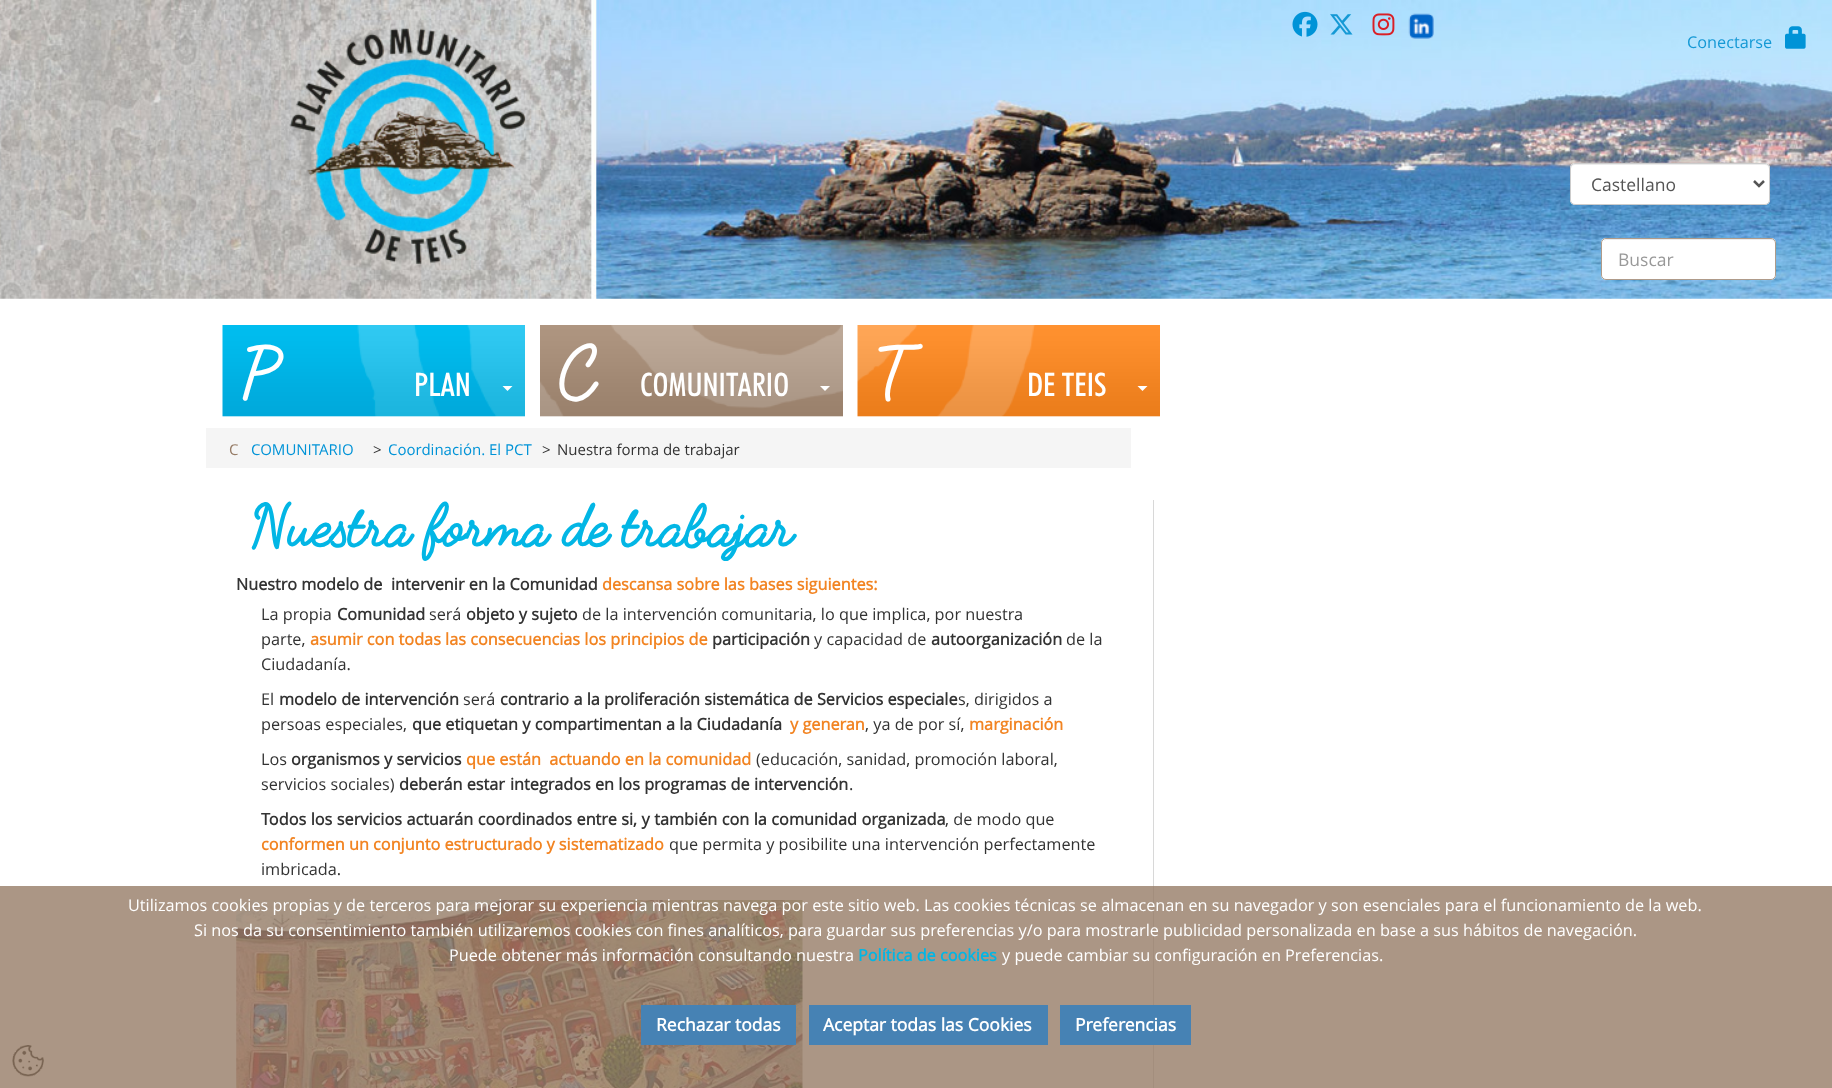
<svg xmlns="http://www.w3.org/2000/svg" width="1832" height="1088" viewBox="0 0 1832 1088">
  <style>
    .t1 { font: 16.25px Open Sans; fill: #1599d5; }
    .t2 { font: 17.5px Open Sans; fill: #555; }
    .t3 { font: 17.5px Open Sans; fill: #999; }
    .t4 { font: bold 69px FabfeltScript; fill: #fff; }
    .t5 { font: 500 32.5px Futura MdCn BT; fill: #fff; }
    .t6 { font: 15px Open Sans; fill: #967c66; }
    .t7 { font: 15px Open Sans; fill: #0093d7; }
    .t8 { font: 15px Open Sans; fill: #333; }
    .t9 { font: bold 57.5px FabfeltScript; fill: #02b6e5; }
    .t10 { font: bold 16.25px Open Sans; fill: #333; }
    .t11 { font: bold 16.25px Open Sans; fill: #f28422; }
    .t12 { font: 16.25px Open Sans; fill: #333; }
    .t13 { font: 16.25px Open Sans; fill: #fff; }
    .t14 { font: bold 16.25px Open Sans; fill: #02b6e5; }
    .t15 { font: bold 17.5px Open Sans; fill: #fff; }
  </style>
  <rect width="100%" height="100%" fill="#fff"/>
  <rect x="0" y="886" width="1832" height="202" fill="#ab9685"/>
  <image x="0" y="0" width="1832" height="299" href="images/1.png"/>
  <image x="1292" y="11" width="26" height="26" href="images/2.png"/>
  <image x="1330" y="14" width="23" height="21" href="images/3.png"/>
  <image x="1372" y="13" width="23" height="23" href="images/4.png"/>
  <image x="1408" y="13" width="26" height="26" href="images/5.png"/>
  <image x="289" y="28" width="237" height="236" href="images/6.png"/>
  <text x="1687" y="48" class="t1">Conectarse</text>
  <image x="1785" y="26" width="21" height="23" href="images/7.png"/>
  <rect x="1570" y="163" width="200" height="42" rx="5" fill="#fff"/>
  <path d="M1575 165H1765C1767 165 1769 167 1769 169V168C1769 166 1767 164 1765 164H1575C1573 164 1571 166 1571 168V169C1571 167 1573 165 1575 165Z" fill="#ececec"/>
  <rect x="1570.5" y="163.5" width="199" height="41" rx="4.5" fill="none" stroke="#ccc"/>
  <path d="M1754 181L1759 186L1764 181" fill="none" stroke="#555" stroke-width="2.5"/>
  <text x="1591" y="191" class="t2">Castellano</text>
  <rect x="1601" y="238" width="175" height="42" rx="5" fill="#fff"/>
  <path d="M1606 240H1771C1773 240 1775 242 1775 244V243C1775 241 1773 239 1771 239H1607C1606 239 1604 240 1604 241Z" fill="#ececec"/>
  <rect x="1601.5" y="238.5" width="174" height="41" rx="4.5" fill="none" stroke="#af9b8a"/>
  <text x="1618" y="266" class="t3">Buscar</text>
  <image x="222" y="325" width="303" height="92" href="images/8.png"/>
  <text x="240" y="394" class="t4">P</text>
  <text x="414" y="396" class="t5">PLAN</text>
  <path d="M502.5 386H512.5L507.5 391Z" fill="#fff"/>
  <image x="540" y="325" width="303" height="92" href="images/9.png"/>
  <text x="558" y="394" class="t4">C</text>
  <text x="640" y="396" class="t5">COMUNITARIO</text>
  <path d="M820 386H830L825 391Z" fill="#fff"/>
  <image x="857" y="325" width="303" height="92" href="images/10.png"/>
  <text x="875" y="394" class="t4">T</text>
  <text x="1027" y="396" class="t5">DE TEIS</text>
  <path d="M1137.5 386H1147.5L1142.5 391Z" fill="#fff"/>
  <rect x="206" y="428" width="925" height="40" fill="#f5f5f5"/>
  <text x="229" y="455" class="t6">C</text>
  <text x="251" y="455" class="t7">COMUNITARIO</text>
  <text x="373" y="455" class="t8">&gt;</text>
  <text x="388" y="455" class="t7">Coordinación. El PCT</text>
  <text x="542" y="455" class="t8">&gt;</text>
  <text x="557" y="455" class="t8">Nuestra forma de trabajar</text>
  <image x="12" y="1045" width="32" height="32" href="images/11.png"/>
  <text x="250" y="544" class="t9">Nuestra forma de trabajar</text>
  <text x="236" y="590" class="t10">Nuestro modelo de</text>
  <text x="391" y="590" class="t10">intervenir en la Comunidad</text>
  <text x="602" y="590" class="t11">descansa sobre las bases siguientes:</text>
  <text x="261" y="620" class="t12">La propia</text>
  <text x="337" y="620" class="t10">Comunidad</text>
  <text x="429" y="620" class="t12">será</text>
  <text x="466" y="620" class="t10">objeto y sujeto</text>
  <text x="582" y="620" class="t12">de la intervención comunitaria, lo que implica, por nuestra</text>
  <text x="261" y="645" class="t12">parte,</text>
  <text x="310" y="645" class="t11">asumir con todas las consecuencias los principios de</text>
  <text x="712" y="645" class="t10">participación</text>
  <text x="814" y="645" class="t12">y capacidad de</text>
  <text x="931" y="645" class="t10">autoorganización</text>
  <text x="1066" y="645" class="t12">de la</text>
  <text x="261" y="670" class="t12">Ciudadanía.</text>
  <text x="261" y="705" class="t12">El</text>
  <text x="279" y="705" class="t10">modelo de intervención</text>
  <text x="463" y="705" class="t12">será</text>
  <text x="500" y="705" class="t10">contrario a la proliferación sistemática de Servicios especiale</text>
  <text x="958" y="705" class="t12">s, dirigidos a</text>
  <text x="261" y="730" class="t12">persoas especiales,</text>
  <text x="412" y="730" class="t10">que etiquetan y compartimentan a la Ciudadanía</text>
  <text x="790" y="730" class="t11">y generan</text>
  <text x="865" y="730" class="t12">, ya de por sí,</text>
  <text x="969" y="730" class="t11">marginación</text>
  <text x="261" y="765" class="t12">Los</text>
  <text x="291" y="765" class="t10">organismos y servicios</text>
  <text x="466" y="765" class="t11" xml:space="preserve">que están  actuando en la comunidad</text>
  <text x="756" y="765" class="t12">(educación, sanidad, promoción laboral,</text>
  <text x="261" y="790" class="t12">servicios sociales)</text>
  <text x="399" y="790" class="t10">deberán estar</text>
  <text x="510" y="790" class="t10">integrados en los programas de intervención</text>
  <text x="849" y="790" class="t12">.</text>
  <text x="261" y="825" word-spacing="0.25" class="t10">Todos los servicios actuarán coordinados entre si, y también con la comunidad organizada</text>
  <text x="945" y="825" class="t12">, de modo que</text>
  <text x="261" y="850" class="t11">conformen un conjunto estructurado y sistematizado</text>
  <text x="669" y="850" class="t12">que permita y posibilite una intervención perfectamente</text>
  <text x="261" y="875" class="t12">imbricada.</text>
  <image x="236" y="900" width="567" height="188" href="images/12.png"/>
  <rect x="1153" y="500" width="1" height="386" fill="#d8d8d8"/>
  <rect x="1153" y="886" width="1" height="202" fill="#a38e7d"/>
  <text x="128" y="911" class="t13">Utilizamos cookies propias y de terceros para mejorar su experiencia mientras navega por este sitio web. Las cookies técnicas se almacenan en su navegador y son esenciales para el funcionamiento de la web.</text>
  <text x="194" y="936" class="t13">Si nos da su consentimiento también utilizaremos cookies con fines analíticos, para guardar sus preferencias y/o para mostrarle publicidad personalizada en base a sus hábitos de navegación.</text>
  <text x="449" y="961" class="t13">Puede obtener más información consultando nuestra</text>
  <text x="858" y="961" class="t14">Política de cookies</text>
  <text x="1002" y="961" class="t13">y puede cambiar su configuración en Preferencias.</text>
  <rect x="641" y="1005" width="155" height="40" fill="#4682b4"/>
  <text x="656" y="1031" class="t15">Rechazar todas</text>
  <rect x="809" y="1005" width="239" height="40" fill="#4682b4"/>
  <text x="823" y="1031" class="t15">Aceptar todas las Cookies</text>
  <rect x="1060" y="1005" width="131" height="40" fill="#4682b4"/>
  <text x="1075" y="1031" class="t15">Preferencias</text>
</svg>
